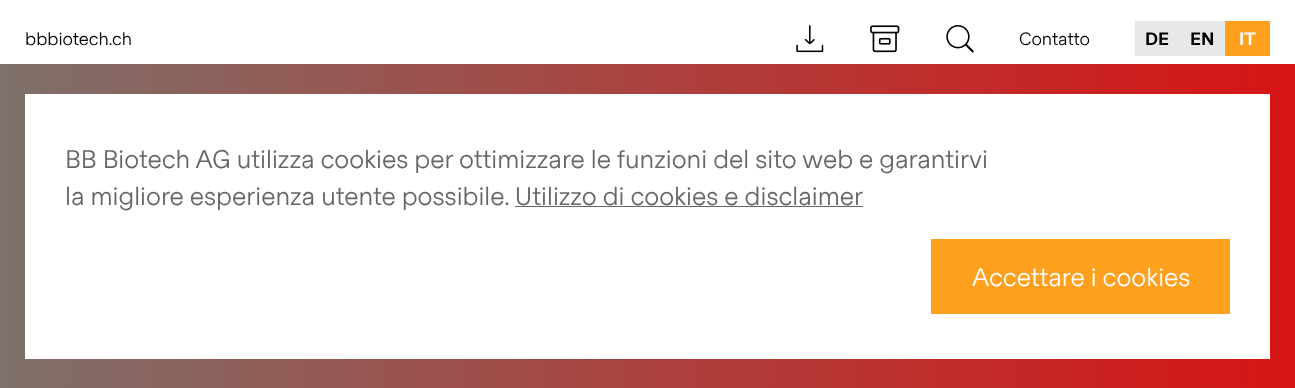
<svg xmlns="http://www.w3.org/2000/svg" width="1295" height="388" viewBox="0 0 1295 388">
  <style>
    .t1 { font: 17.5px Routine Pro; fill: #000; }
    .t2 { font: bold 17.5px Routine Pro; fill: #000; }
    .t3 { font: bold 17.5px Routine Pro; fill: #fff; }
    .t4 { font: 25px Routine Pro; fill: #666; }
    .t5 { font: 25px Routine Pro; fill: #fff; }
  </style>
  <defs>
    <linearGradient id="g1" gradientUnits="userSpaceOnUse" x1="0" y1="226" x2="1295" y2="226"><stop offset="0" stop-color="#7e706a"/><stop offset="1" stop-color="#d71414"/></linearGradient>
  </defs>
  <rect width="100%" height="100%" fill="#fff"/>
  <text x="25" y="45" class="t1">bbbiotech.ch</text>
  <image x="796" y="25" width="28" height="28" href="images/1.png"/>
  <image x="870" y="25" width="30" height="28" href="images/2.png"/>
  <image x="946" y="25" width="28" height="28" href="images/3.png"/>
  <text x="1019" y="45" class="t1">Contatto</text>
  <rect x="1135" y="21" width="90" height="35" fill="#e8e8e8"/>
  <text x="1145" y="45" class="t2">DE</text>
  <text x="1190" y="45" class="t2">EN</text>
  <rect x="1225" y="21" width="45" height="35" fill="#ffa01e"/>
  <text x="1239" y="45" class="t3">IT</text>
  <rect x="0" y="64" width="1295" height="324" fill="url(#g1)"/>
  <rect x="25" y="94" width="1245" height="265" fill="#fff"/>
  <text x="65" y="168" class="t4">BB Biotech AG utilizza cookies per ottimizzare le funzioni del sito web e garantirvi</text>
  <text x="65" y="205" class="t4">la migliore esperienza utente possibile. Utilizzo di cookies e disclaimer</text>
  <rect x="515" y="206" width="348" height="1" fill="#666"/>
  <rect x="931" y="239" width="299" height="75" fill="#ffa01e"/>
  <text x="972" y="286" class="t5">Accettare i cookies</text>
</svg>
